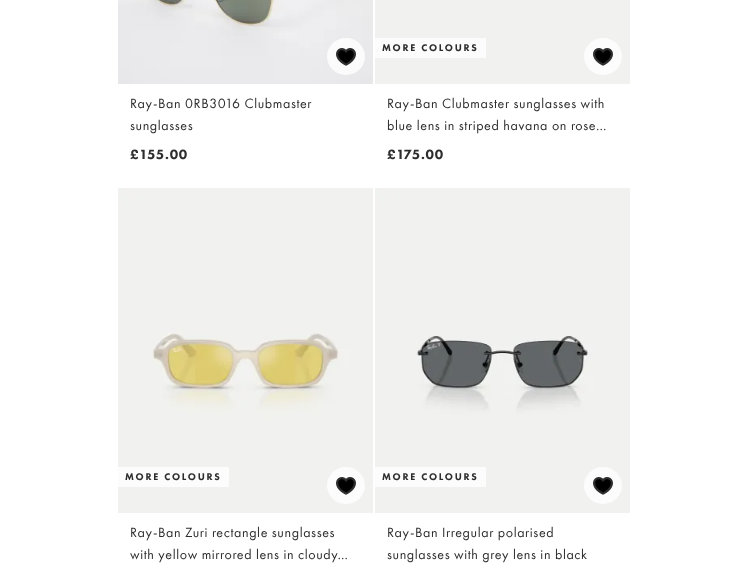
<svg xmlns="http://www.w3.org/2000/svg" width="748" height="569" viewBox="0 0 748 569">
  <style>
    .t1 { font: 14px Futura PT; letter-spacing: 0.6px; fill: #2d2d2d; }
    .t2 { font: 900 14px Futura PT; letter-spacing: 0.75px; fill: #2d2d2d; }
    .t3 { font: 900 10px Futura PT; letter-spacing: 1.75px; fill: #2d2d2d; }
  </style>
  <rect width="100%" height="100%" fill="#fff"/>
  <image x="118" y="0" width="255" height="84" href="images/2.png"/>
  <rect x="327" y="38" width="38" height="37" rx="18.5" fill="#ffffffcc"/>
  <image x="336" y="48" width="20" height="18" href="images/1.png"/>
  <text x="130" y="108" class="t1">Ray-Ban 0RB3016 Clubmaster</text>
  <text x="130" y="130" class="t1">sunglasses</text>
  <text x="130" y="159" class="t2">£155.00</text>
  <rect x="375" y="0" width="255" height="84" fill="#f1f1ef"/>
  <rect x="584" y="38" width="38" height="37" rx="18.5" fill="#fcfcfc"/>
  <image x="593" y="48" width="20" height="18" href="images/3.png"/>
  <rect x="375" y="38" width="111" height="20" fill="#fcfcfc"/>
  <text x="382" y="51" class="t3">MORE COLOURS</text>
  <text x="387" y="108" class="t1">Ray-Ban Clubmaster sunglasses with</text>
  <text x="387" y="130" class="t1">blue lens in striped havana on rose…</text>
  <text x="387" y="159" class="t2">£175.00</text>
  <image x="118" y="188" width="255" height="325" href="images/4.png"/>
  <rect x="327" y="467" width="38" height="37" rx="18.5" fill="#fcfcfc"/>
  <image x="336" y="477" width="20" height="18" href="images/3.png"/>
  <rect x="118" y="467" width="111" height="20" fill="#fcfcfc"/>
  <text x="125" y="480" class="t3">MORE COLOURS</text>
  <text x="130" y="537" class="t1">Ray-Ban Zuri rectangle sunglasses</text>
  <text x="130" y="559" class="t1">with yellow mirrored lens in cloudy…</text>
  <image x="375" y="188" width="255" height="325" href="images/5.png"/>
  <rect x="375" y="467" width="111" height="20" fill="#fcfcfc"/>
  <text x="382" y="480" class="t3">MORE COLOURS</text>
  <text x="387" y="537" class="t1">Ray-Ban Irregular polarised</text>
  <text x="387" y="559" class="t1">sunglasses with grey lens in black</text>
  <rect x="584" y="467" width="38" height="37" rx="18.5" fill="#fcfcfc"/>
  <image x="593" y="477" width="20" height="18" href="images/3.png"/>
</svg>
